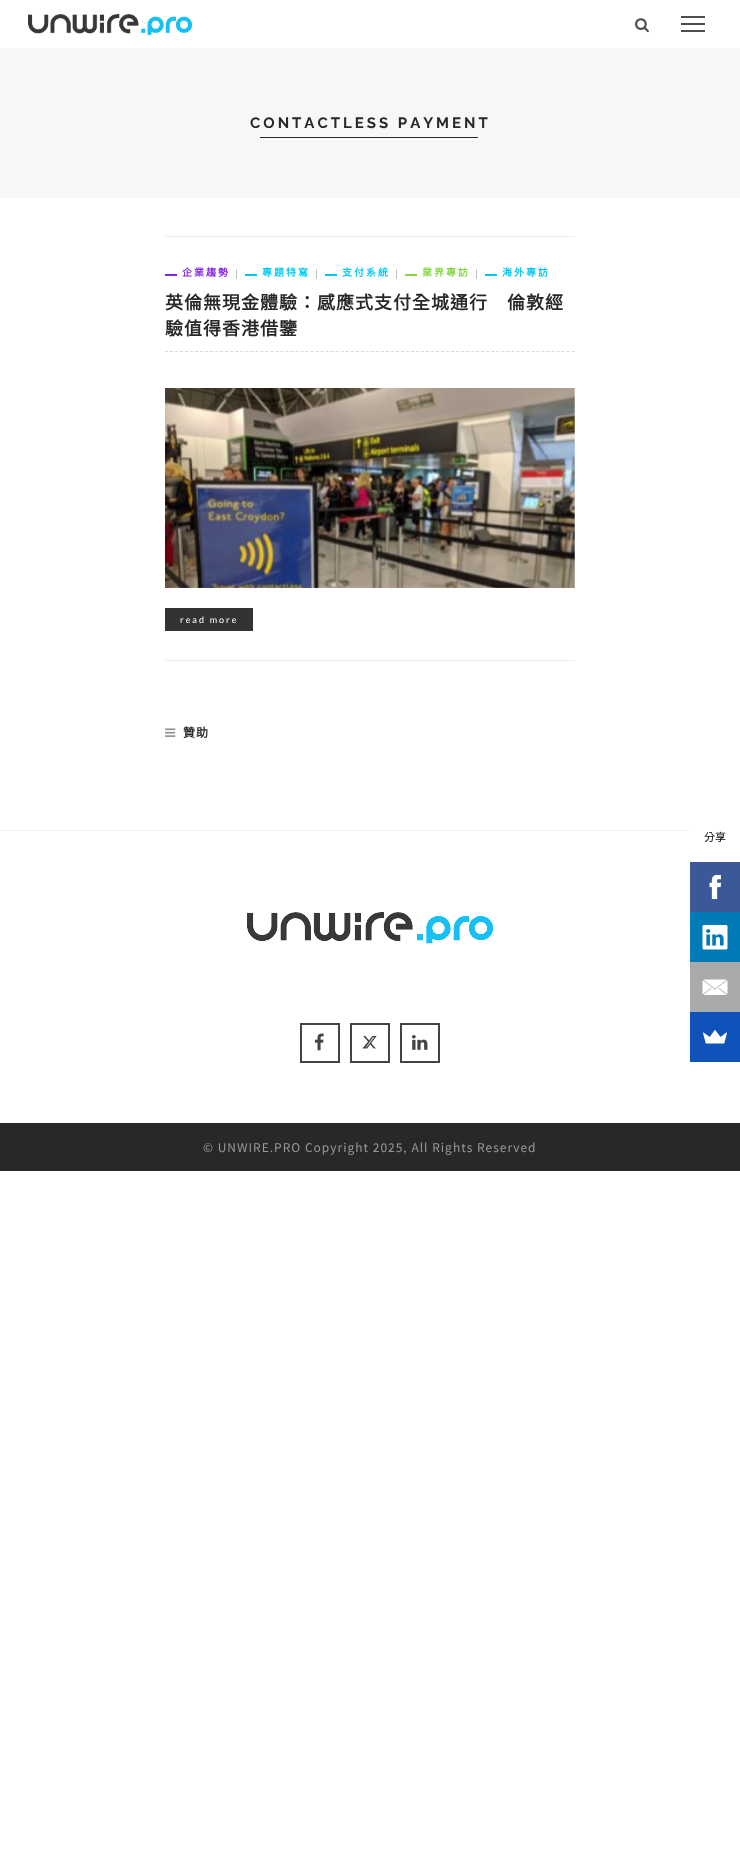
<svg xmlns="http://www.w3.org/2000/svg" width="740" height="1874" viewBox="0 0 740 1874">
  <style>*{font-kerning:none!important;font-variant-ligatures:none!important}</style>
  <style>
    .t1 { font: bold 15px Raleway; letter-spacing: 3px; fill: #282828; }
    .t2 { font: bold 10px Noto Sans CJK TC; letter-spacing: 2px; fill: #8224e3; }
    .t3 { font: bold 10px Lato; letter-spacing: 2px; fill: #bfbfbf; }
    .t4 { font: bold 10px Noto Sans CJK TC; letter-spacing: 2px; fill: #00c8f0; }
    .t5 { font: bold 10px Noto Sans CJK TC; letter-spacing: 2px; fill: #81d742; }
    .t6 { font: bold 18px Noto Sans CJK TC; letter-spacing: 1px; fill: #282828; }
    .t7 { font: 9px Lato; letter-spacing: 2px; fill: #fff; }
    .t8 { font: bold 12px Noto Sans CJK TC; letter-spacing: 1px; fill: #282828; }
    .t9 { font: 12px Noto Sans TC; letter-spacing: 1px; fill: #999; }
    .t10 { font: 11px Noto Sans CJK TC; fill: #000; }
  </style>
  <rect width="100%" height="100%" fill="#fff"/>
  <image x="28" y="14" width="165" height="22" href="images/1.png"/>
  <image x="635" y="18" width="14" height="15" href="images/2.png"/>
  <rect x="681" y="23" width="24" height="2" fill="#4d4d4d"/>
  <rect x="681" y="16" width="24" height="2" fill="#4d4d4d"/>
  <rect x="681" y="30" width="24" height="2" fill="#4d4d4d"/>
  <rect x="0" y="48" width="740" height="150" fill="#f7f7f7"/>
  <text x="250" y="128" class="t1">CONTACTLESS PAYMENT</text>
  <rect x="260" y="137" width="218" height="1" fill="#282828"/>
  <rect x="165" y="236" width="410" height="1" fill="#eee"/>
  <rect x="165" y="274" width="12" height="2" fill="#8224e3"/>
  <text x="182" y="276" class="t2">企業趨勢</text>
  <text x="235" y="277" class="t3">|</text>
  <rect x="245" y="274" width="12" height="2" fill="#00c8f0"/>
  <text x="262" y="276" class="t4">專題特寫</text>
  <text x="315" y="277" class="t3">|</text>
  <rect x="325" y="274" width="12" height="2" fill="#00c8f0"/>
  <text x="342" y="276" class="t4">支付系統</text>
  <text x="395" y="277" class="t3">|</text>
  <rect x="405" y="274" width="12" height="2" fill="#81d742"/>
  <text x="422" y="276" class="t5">業界專訪</text>
  <text x="475" y="277" class="t3">|</text>
  <rect x="485" y="274" width="12" height="2" fill="#00c8f0"/>
  <text x="502" y="276" class="t4">海外專訪</text>
  <text x="165" y="309" class="t6">英倫無現金體驗：感應式支付全城通行　倫敦經</text>
  <text x="165" y="335" class="t6">驗值得香港借鑒</text>
  <path d="M165 351.5H575" fill="none" stroke="#dadada" stroke-dasharray="3 2.02"/>
  <image x="165" y="388" width="410" height="200" href="images/3.png"/>
  <rect x="165" y="608" width="88" height="23" fill="#333"/>
  <text x="180" y="623" class="t7">read more</text>
  <rect x="165" y="660" width="410" height="1" fill="#eee"/>
  <image x="165" y="728" width="11" height="9" href="images/4.png"/>
  <text x="183" y="737" class="t8">贊助</text>
  <rect x="0" y="830" width="690" height="1" fill="#f2f2f2"/>
  <image x="247" y="912" width="246" height="32" href="images/5.png"/>
  <rect x="301" y="1024" width="38" height="38" fill="none" stroke="#444" stroke-width="2"/>
  <image x="314" y="1033" width="10" height="18" href="images/6.png"/>
  <rect x="351" y="1024" width="38" height="38" fill="none" stroke="#444" stroke-width="2"/>
  <image x="362" y="1035" width="15" height="14" href="images/7.png"/>
  <rect x="401" y="1024" width="38" height="38" fill="none" stroke="#444" stroke-width="2"/>
  <image x="412" y="1035" width="16" height="15" href="images/8.png"/>
  <rect x="0" y="1123" width="740" height="48" fill="#282828"/>
  <text x="203" y="1152" class="t9">© UNWIRE.PRO Copyright 2025, All Rights Reserved</text>
  <text x="704" y="841" class="t10">分享</text>
  <rect x="690" y="862" width="50" height="50" fill="#3b5998"/>
  <image x="709" y="875" width="12" height="24" href="images/9.png"/>
  <rect x="690" y="912" width="50" height="50" fill="#007bb6"/>
  <image x="702" y="925" width="26" height="25" href="images/10.png"/>
  <rect x="690" y="962" width="50" height="50" fill="#aaa"/>
  <image x="702" y="979" width="26" height="16" href="images/11.png"/>
  <rect x="690" y="1012" width="50" height="50" fill="#0f52ba"/>
  <image x="703" y="1030" width="24" height="14" href="images/12.png"/>
</svg>
